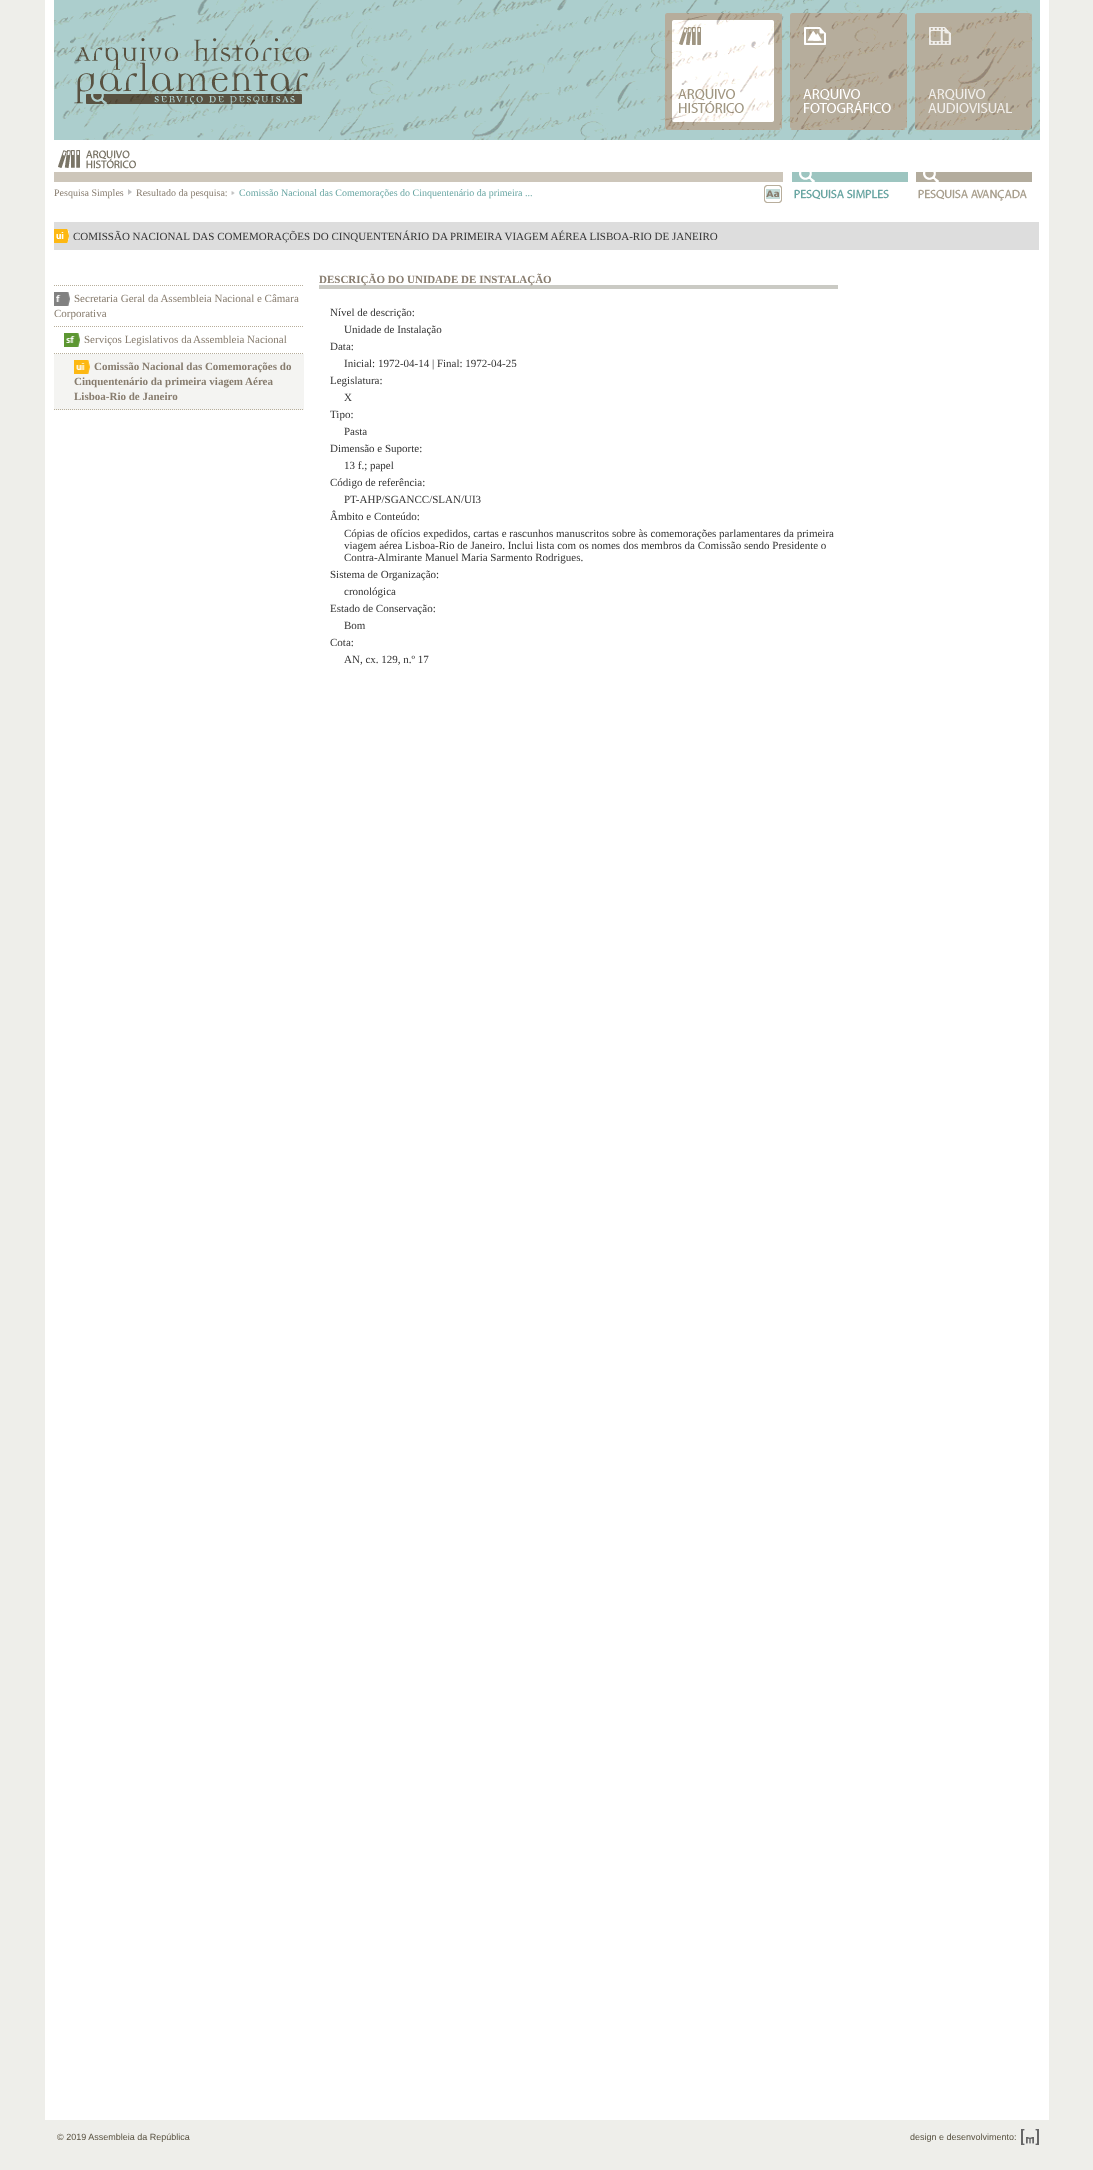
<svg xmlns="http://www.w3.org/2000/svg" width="1093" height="2170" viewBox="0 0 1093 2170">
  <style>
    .t1 { font: 10px Liberation Serif; fill: #877c6e; }
    .t2 { font: 10px Liberation Serif; fill: #69a6a3; }
    .t3 { font: 11px Liberation Serif; fill: #333; }
    .t4 { font: 11px Liberation Serif; fill: #877c6e; }
    .t5 { font: bold 11px Liberation Serif; fill: #877c6e; }
    .t6 { font: 9px Liberation Sans; fill: #595241; }
  </style>
  <rect width="100%" height="100%" fill="#eeeeea"/>
  <rect x="45" y="0" width="1004" height="2120" fill="#fff"/>
  <image x="54" y="0" width="986" height="140" href="images/1.png"/>
  <image x="665" y="13" width="117" height="117" href="images/2.png"/>
  <image x="790" y="13" width="117" height="117" href="images/3.png"/>
  <image x="915" y="13" width="117" height="117" href="images/4.png"/>
  <image x="58" y="150" width="78" height="19" href="images/5.png"/>
  <rect x="54" y="172" width="729" height="10" fill="#cdc6ba"/>
  <text x="54" y="196" class="t1">Pesquisa Simples</text>
  <image x="128" y="189" width="4" height="6" href="images/6.png"/>
  <text x="136" y="196" class="t1">Resultado da pesquisa:</text>
  <image x="231" y="191" width="4" height="4" href="images/7.png"/>
  <text x="239" y="196" class="t2">Comissão Nacional das Comemorações do Cinquentenário da primeira ...</text>
  <image x="764" y="185" width="18" height="18" href="images/8.png"/>
  <image x="792" y="172" width="116" height="28" href="images/9.png"/>
  <image x="916" y="172" width="116" height="29" href="images/10.png"/>
  <rect x="54" y="222" width="985" height="28" fill="#ddd"/>
  <image x="54" y="229" width="15" height="14" href="images/11.png"/>
  <text x="73" y="240" class="t3">COMISSÃO NACIONAL DAS COMEMORAÇÕES DO CINQUENTENÁRIO DA PRIMEIRA VIAGEM AÉREA LISBOA-RIO DE JANEIRO</text>
  <path d="M54 285.5H304" fill="none" stroke="#b7ae9b" stroke-dasharray="1 1"/>
  <path d="M54 326.5H304" fill="none" stroke="#b7ae9b" stroke-dasharray="1 1"/>
  <image x="54" y="292" width="16" height="14" href="images/12.png"/>
  <text x="74" y="302" class="t4">Secretaria Geral da Assembleia Nacional e Câmara</text>
  <text x="54" y="317" class="t4">Corporativa</text>
  <path d="M54 353.5H304" fill="none" stroke="#b7ae9b" stroke-dasharray="1 1"/>
  <image x="64" y="333" width="16" height="14" href="images/13.png"/>
  <text x="84" y="343" class="t4">Serviços Legislativos da</text>
  <text x="193" y="343" class="t4">Assembleia Nacional</text>
  <rect x="54" y="354" width="250" height="56" fill="#f4f4f2"/>
  <path d="M54 409.5H304" fill="none" stroke="#b7ae9b" stroke-dasharray="1 1"/>
  <image x="74" y="360" width="16" height="14" href="images/14.png"/>
  <text x="94" y="370" class="t5">Comissão Nacional das Comemorações do</text>
  <text x="74" y="385" class="t5">Cinquentenário da primeira viagem Aérea</text>
  <text x="74" y="400" class="t5">Lisboa-Rio de Janeiro</text>
  <rect x="319" y="285" width="519" height="4" fill="#cacac4"/>
  <text x="319" y="283" class="t5">DESCRIÇÃO DO UNIDADE DE INSTALAÇÃO</text>
  <text x="330" y="316" class="t3">Nível de descrição:</text>
  <text x="344" y="333" class="t3">Unidade de Instalação</text>
  <text x="330" y="350" class="t3">Data:</text>
  <text x="344" y="367" class="t3">Inicial: 1972-04-14 | Final: 1972-04-25</text>
  <text x="330" y="384" class="t3">Legislatura:</text>
  <text x="344" y="401" class="t3">X</text>
  <text x="330" y="418" class="t3">Tipo:</text>
  <text x="344" y="435" class="t3">Pasta</text>
  <text x="330" y="452" class="t3">Dimensão e Suporte:</text>
  <text x="344" y="469" class="t3">13 f.; papel</text>
  <text x="330" y="486" class="t3">Código de referência:</text>
  <text x="344" y="503" class="t3">PT-AHP/SGANCC/SLAN/UI3</text>
  <text x="330" y="520" class="t3">Âmbito e Conteúdo:</text>
  <text x="344" y="537" class="t3">Cópias de ofícios expedidos, cartas e rascunhos manuscritos sobre às comemorações parlamentares da primeira</text>
  <text x="344" y="549" class="t3">viagem aérea Lisboa-Rio de Janeiro. Inclui lista com os nomes dos membros da Comissão sendo Presidente o</text>
  <text x="344" y="561" class="t3">Contra-Almirante Manuel Maria Sarmento Rodrigues.</text>
  <text x="330" y="578" class="t3">Sistema de Organização:</text>
  <text x="344" y="595" class="t3">cronológica</text>
  <text x="330" y="612" class="t3">Estado de Conservação:</text>
  <text x="344" y="629" class="t3">Bom</text>
  <text x="330" y="646" class="t3">Cota:</text>
  <text x="344" y="663" class="t3">AN, cx. 129, n.º 17</text>
  <text x="57" y="2140" class="t6">© 2019 Assembleia da República</text>
  <text x="910" y="2140" class="t6">design e desenvolvimento:</text>
  <image x="1021" y="2129" width="18" height="16" href="images/15.png"/>
</svg>
